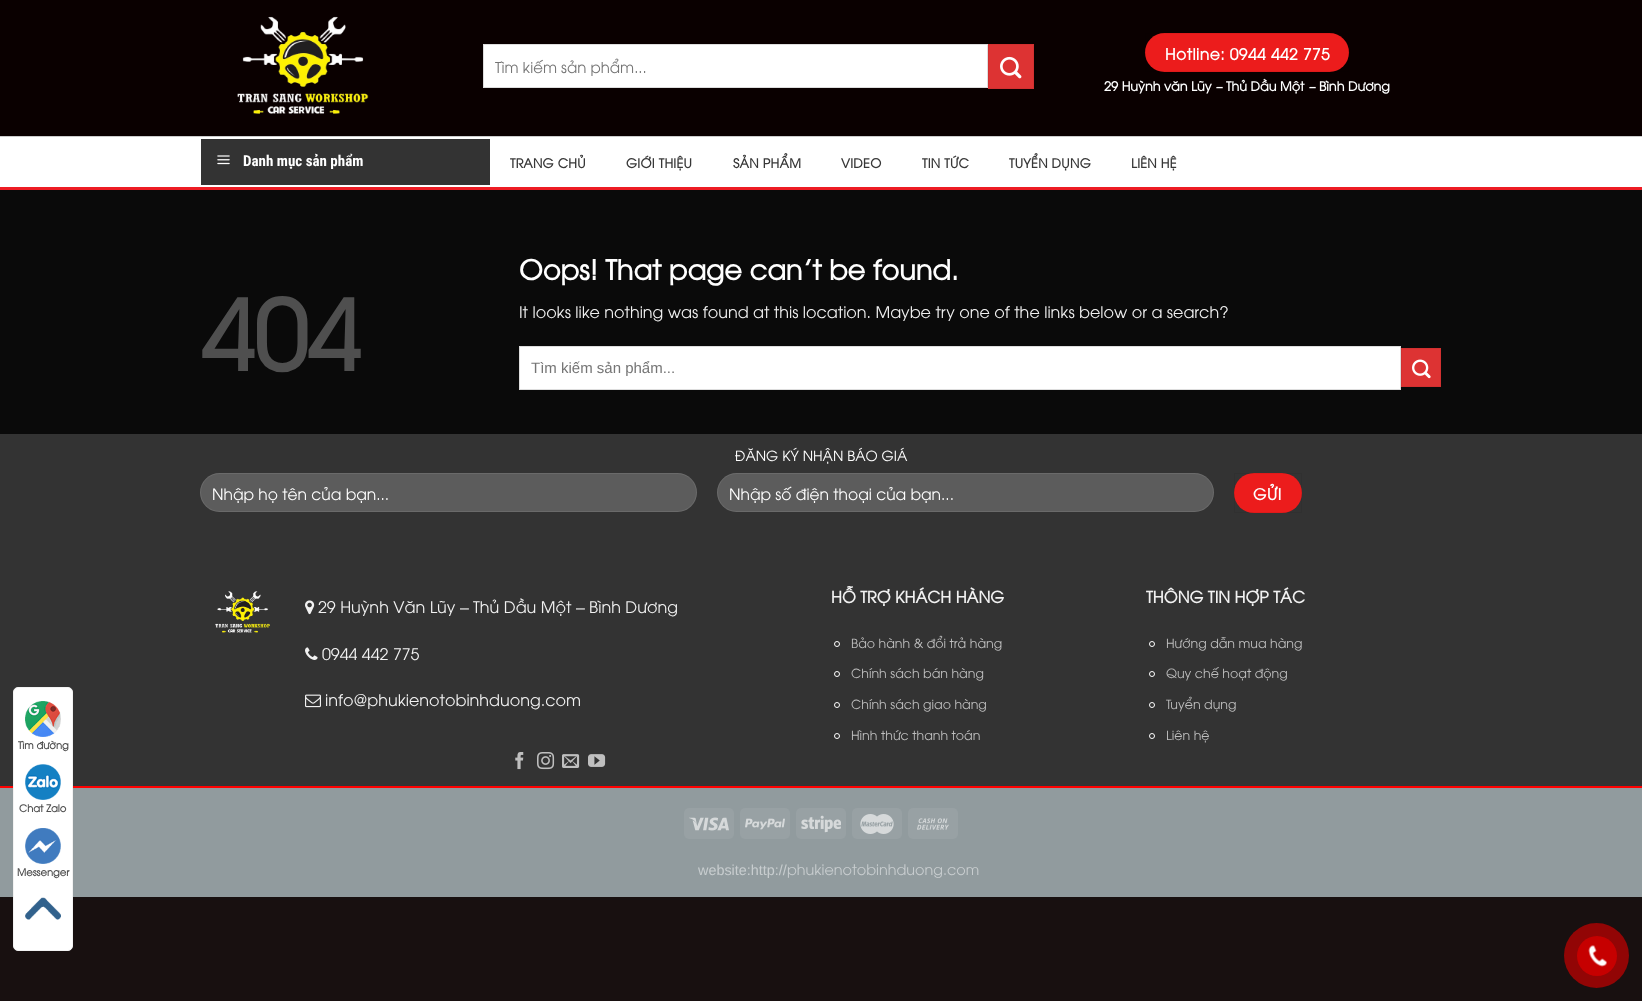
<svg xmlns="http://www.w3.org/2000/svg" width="1642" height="1001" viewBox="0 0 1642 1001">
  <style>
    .t1 { font: bold 10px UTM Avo; fill: #4f4f4f; }
    .t2 { font: 15px UTM Avo; fill: #757575; }
    .t3 { font: bold 15.5px UTM Avo; letter-spacing: 0.5px; fill: #fff; }
    .t4 { font: bold 12.75px UTM Avo; fill: #fff; }
    .t5 { font: bold 12.75px Liberation Sans; fill: #fff; }
    .t6 { font: bold 15px Roboto Condensed; fill: #fff; }
    .t7 { font: bold 12.75px UTM Avo; letter-spacing: 0.25px; fill: #383838; }
    .t8 { font: bold 96px UTM Avo; fill: #4f4f4f; }
    .t9 { font: bold 27.25px UTM Avo; fill: #fff; }
    .t10 { font: 16px UTM Avo; fill: #f1f1f1; }
    .t11 { font: 15px Liberation Sans; fill: #757575; }
    .t12 { font: 14px UTM Avo; fill: #fff; }
    .t13 { font: 15.5px UTM Avo; fill: #fff; }
    .t14 { font: 16px Liberation Sans; fill: #f1f1f1; }
    .t15 { font: bold 16px UTM Avo; fill: #f1f1f1; }
    .t16 { font: 12.6px UTM Avo; fill: #bfbfbf; }
    .t17 { font: 14.4px Liberation Sans; fill: #c8cdcf; }
    .t18 { font: 14.4px UTM Avo; fill: #c8cdcf; }
  </style>
  <rect width="100%" height="100%" fill="#181010"/>
  <rect x="0" y="434" width="1642" height="352" fill="#333"/>
  <rect x="0" y="788" width="1642" height="109" fill="#919b9e"/>
  <rect x="0" y="786" width="1642" height="2" fill="#f00"/>
  <rect x="13.5" y="687.5" width="59" height="263" rx="4.5" fill="#fff" stroke="#f2f2f2"/>
  <image x="25" y="701" width="36" height="36" href="images/1.png"/>
  <text x="18" y="749" class="t1">Tìm đường</text>
  <image x="25" y="764" width="36" height="36" href="images/2.png"/>
  <text x="19" y="812" class="t1">Chat Zalo</text>
  <image x="25" y="828" width="36" height="36" href="images/3.png"/>
  <text x="17" y="876" class="t1">Messenger</text>
  <image x="25" y="897" width="36" height="23" href="images/4.png"/>
  <rect x="0" y="190" width="1642" height="244" fill="#0a0a0a"/>
  <rect x="0" y="0" width="1642" height="136" fill="#0a0000"/>
  <image x="237" y="16" width="132" height="98" href="images/5.png"/>
  <rect x="483.5" y="44.5" width="504" height="43" fill="#fff" stroke="#ddd"/>
  <text x="495" y="73" class="t2">Tìm kiếm sản phẩm...</text>
  <rect x="988.5" y="44.5" width="45" height="44" fill="#d33" stroke="#d23030"/>
  <image x="1000" y="56" width="22" height="23" href="images/6.png"/>
  <rect x="1145" y="33" width="204" height="39" rx="19.5" fill="#ec1c1c"/>
  <rect x="1145.5" y="33.5" width="203" height="38" fill="none" stroke="#0000000d"/>
  <text x="1165" y="60" class="t3">Hotline: 0944 442 775</text>
  <text x="1104" y="91" class="t4">29 Huỳnh văn Lũy</text>
  <text x="1216" y="91" class="t5">–</text>
  <text x="1226" y="91" class="t4">Thủ Dầu Một</text>
  <text x="1309" y="91" class="t5">–</text>
  <text x="1319" y="91" class="t4">Bình Dương</text>
  <rect x="0" y="137" width="1642" height="50" fill="#fff"/>
  <rect x="0" y="136" width="1642" height="1" fill="#ccc"/>
  <rect x="0" y="187" width="1642" height="3" fill="#ed1c24"/>
  <rect x="201" y="139" width="289" height="46" fill="#333"/>
  <image x="217" y="155" width="13" height="10" href="images/7.png"/>
  <text x="243" y="166" class="t6">Danh mục sản phẩm</text>
  <text x="510" y="168" class="t7">TRANG CHỦ</text>
  <text x="626" y="168" class="t7">GIỚI THIỆU</text>
  <text x="733" y="168" class="t7">SẢN PHẨM</text>
  <text x="841" y="168" class="t7">VIDEO</text>
  <text x="922" y="168" class="t7">TIN TỨC</text>
  <text x="1009" y="168" class="t7">TUYỂN DỤNG</text>
  <text x="1131" y="168" class="t7">LIÊN HỆ</text>
  <text x="201" y="371" class="t8">404</text>
  <text x="519" y="280" class="t9">Oops! That page can’t be found.</text>
  <text x="519" y="318" class="t10">It looks like nothing was found at this location. Maybe try one of the links below or a search?</text>
  <rect x="519.5" y="346.5" width="881" height="43" fill="#fff" stroke="#ddd"/>
  <text x="531" y="373" class="t11">Tìm kiếm sản phẩm...</text>
  <rect x="1401.5" y="348.5" width="39" height="38" fill="#d33" stroke="#d23030"/>
  <image x="1412" y="359" width="19" height="20" href="images/8.png"/>
  <text x="735" y="461" class="t12">ĐĂNG KÝ NHẬN BÁO GIÁ</text>
  <rect x="200" y="473" width="497" height="39" rx="19.5" fill="#5c5c5c"/>
  <rect x="200.5" y="473.5" width="496" height="38" rx="19" fill="none" stroke="#ffffff17"/>
  <text x="212" y="500" class="t13">Nhập họ tên của bạn...</text>
  <rect x="717" y="473" width="497" height="39" rx="19.5" fill="#5c5c5c"/>
  <rect x="717.5" y="473.5" width="496" height="38" rx="19" fill="none" stroke="#ffffff17"/>
  <text x="729" y="500" class="t13">Nhập số điện thoại của bạn...</text>
  <rect x="1234" y="473" width="68" height="40" rx="20" fill="#ec1c1c"/>
  <rect x="1234.5" y="473.5" width="67" height="39" fill="none" stroke="#0000000d"/>
  <text x="1253" y="500" class="t3">GỬI</text>
  <image x="215" y="591" width="55" height="42" href="images/9.png"/>
  <image x="305" y="600" width="10" height="15" href="images/10.png"/>
  <text x="318" y="613" class="t10">29 Huỳnh Văn Lũy</text>
  <text x="460" y="613" class="t14">–</text>
  <text x="473" y="613" class="t10">Thủ Dầu Một</text>
  <text x="576" y="613" class="t14">–</text>
  <text x="589" y="613" class="t10">Bình Dương</text>
  <image x="305" y="647" width="13" height="13" href="images/11.png"/>
  <text x="322" y="660" class="t10">0944 442 775</text>
  <image x="305" y="694" width="16" height="14" href="images/12.png"/>
  <text x="325" y="706" class="t10">info@phukienotobinhduong.com</text>
  <image x="515" y="752" width="9" height="18" href="images/13.png"/>
  <image x="537" y="752" width="18" height="18" href="images/14.png"/>
  <image x="562" y="754" width="18" height="14" href="images/15.png"/>
  <image x="588" y="754" width="18" height="13" href="images/16.png"/>
  <text x="831" y="603" class="t15">HỖ TRỢ KHÁCH HÀNG</text>
  <circle cx="837" cy="644" r="2.5" fill="none" stroke="#fff"/>
  <text x="851" y="648" class="t16">Bảo hành &amp; đổi trả hàng</text>
  <circle cx="837" cy="674" r="2.5" fill="none" stroke="#fff"/>
  <text x="851" y="678" class="t16">Chính sách bán hàng</text>
  <circle cx="837" cy="705" r="2.5" fill="none" stroke="#fff"/>
  <text x="851" y="709" class="t16">Chính sách giao hàng</text>
  <circle cx="837" cy="736" r="2.5" fill="none" stroke="#fff"/>
  <text x="851" y="740" class="t16">Hình thức thanh toán</text>
  <text x="1146" y="603" class="t15">THÔNG TIN HỢP TÁC</text>
  <circle cx="1152" cy="644" r="2.5" fill="none" stroke="#fff"/>
  <text x="1166" y="648" class="t16">Hướng dẫn mua hàng</text>
  <circle cx="1152" cy="674" r="2.5" fill="none" stroke="#fff"/>
  <text x="1166" y="678" class="t16">Quy chế hoạt động</text>
  <circle cx="1152" cy="705" r="2.5" fill="none" stroke="#fff"/>
  <text x="1166" y="709" class="t16">Tuyển dụng</text>
  <circle cx="1152" cy="736" r="2.5" fill="none" stroke="#fff"/>
  <text x="1166" y="740" class="t16">Liên hệ</text>
  <rect x="684" y="808" width="50" height="31" rx="5" fill="#98a1a4"/>
  <image x="689" y="817" width="40" height="14" href="images/17.png"/>
  <rect x="740" y="808" width="50" height="31" rx="5" fill="#98a1a4"/>
  <image x="745" y="818" width="40" height="12" href="images/18.png"/>
  <rect x="796" y="808" width="50" height="31" rx="5" fill="#98a1a4"/>
  <image x="801" y="815" width="40" height="18" href="images/19.png"/>
  <rect x="852" y="808" width="50" height="31" rx="5" fill="#98a1a4"/>
  <image x="860" y="814" width="34" height="20" href="images/20.png"/>
  <rect x="908" y="808" width="50" height="31" rx="5" fill="#98a1a4"/>
  <image x="917" y="818" width="32" height="12" href="images/21.png"/>
  <text x="698" y="875" class="t17">website:http://</text>
  <text x="787" y="875" class="t18">phukienotobinhduong.com</text>
  <circle cx="1596.5" cy="955.5" r="32.5" fill="#920505"/>
  <circle cx="1597" cy="956" r="20" fill="#c60000"/>
  <image x="1588" y="945" width="19" height="22" href="images/22.png"/>
</svg>
